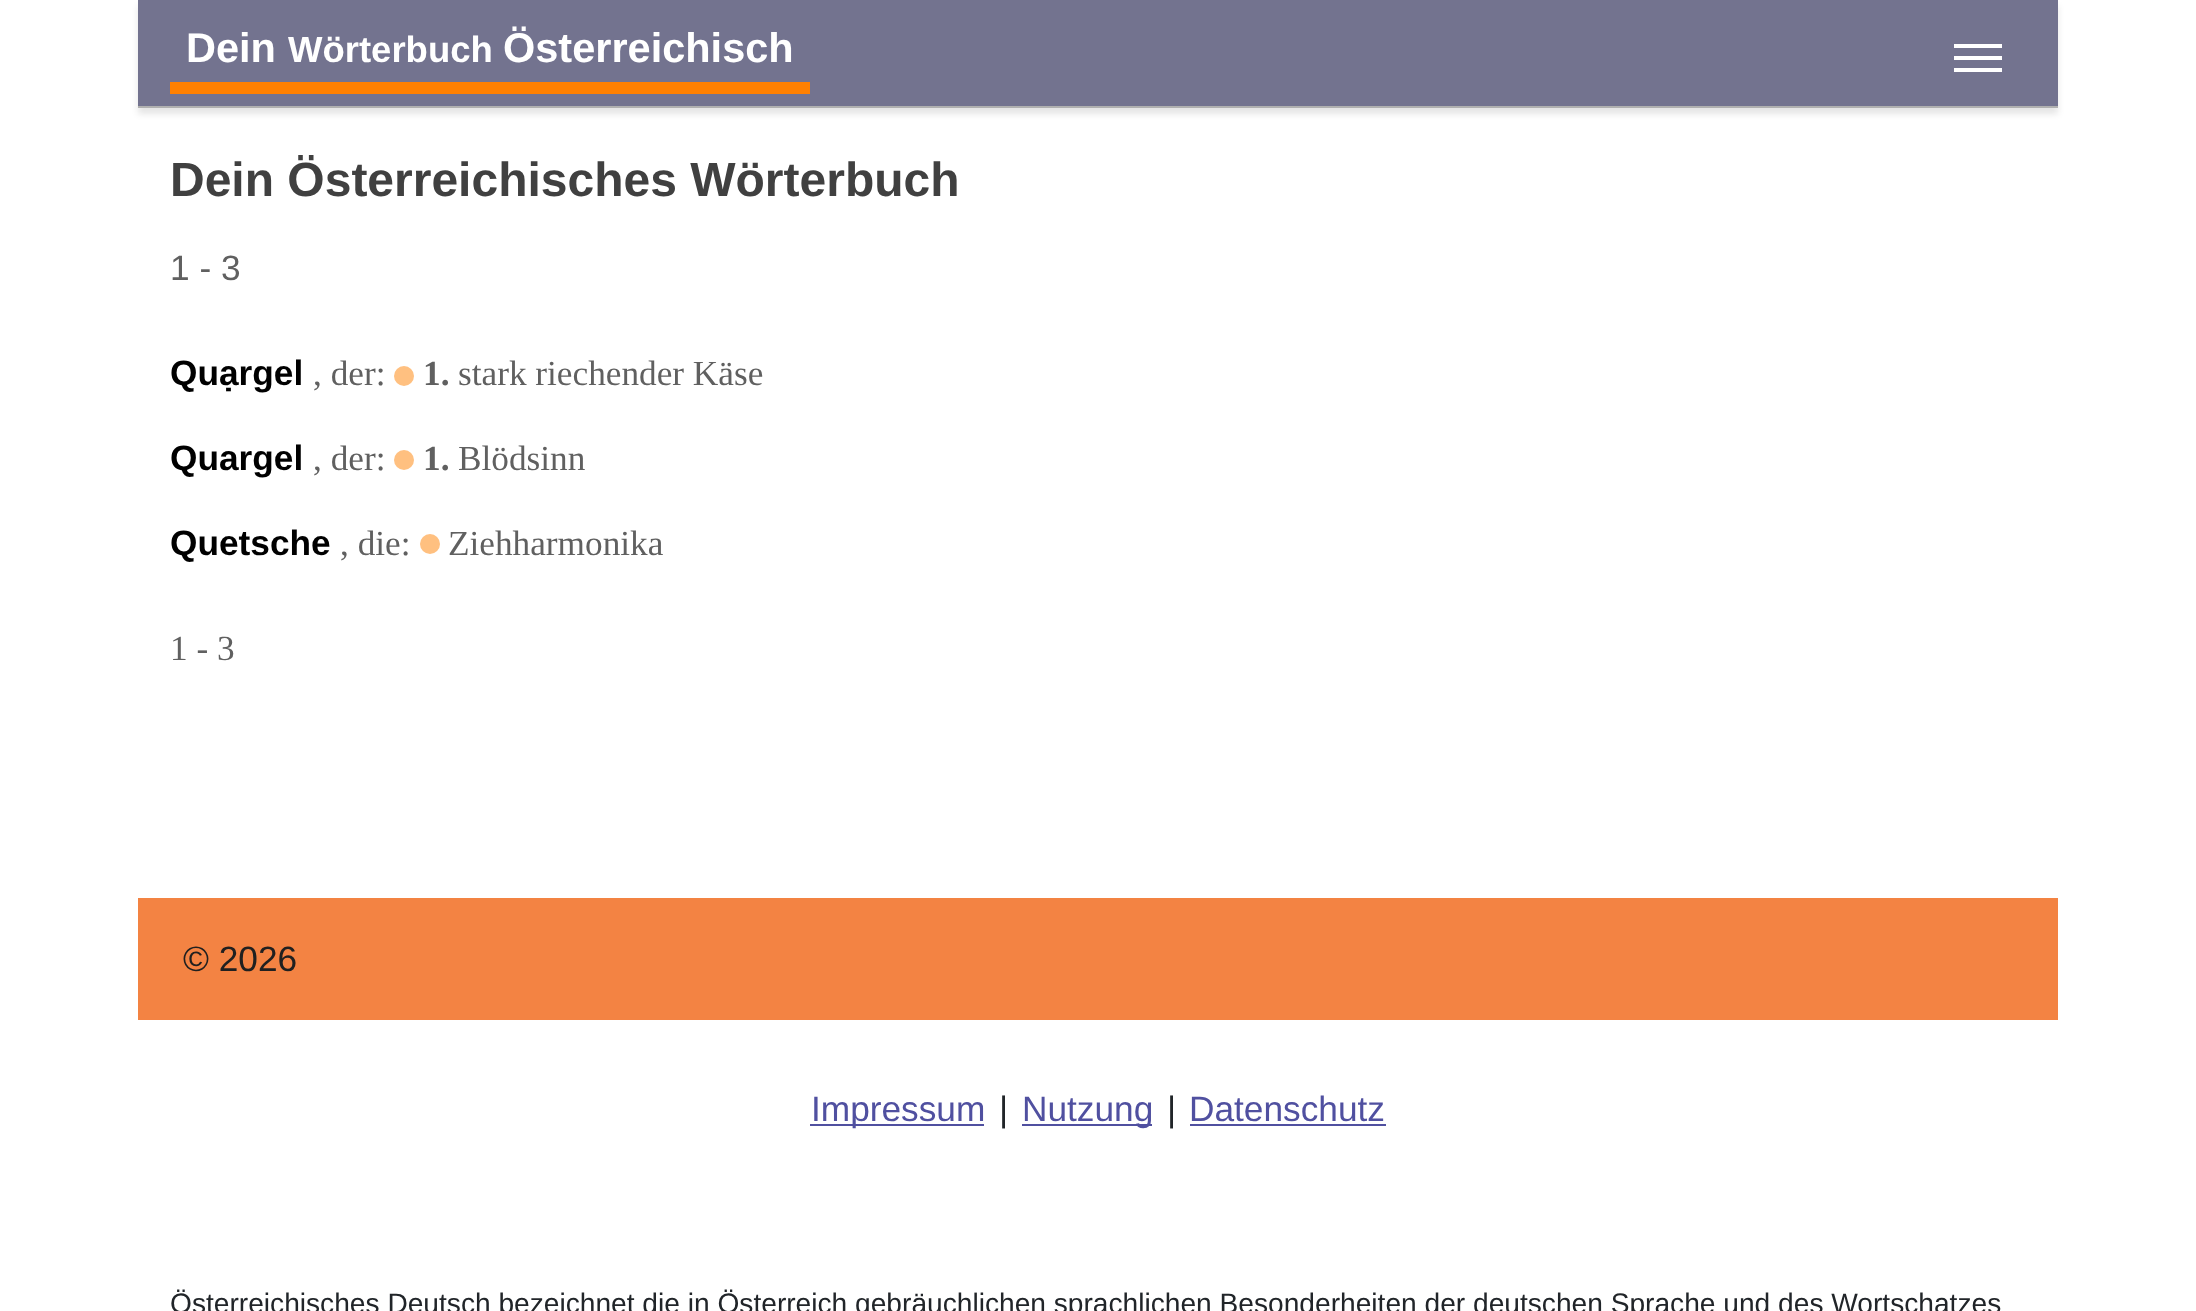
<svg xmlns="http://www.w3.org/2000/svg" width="2196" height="1311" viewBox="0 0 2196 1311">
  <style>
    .t1 { font: bold 41.5px Liberation Sans; fill: #fff; }
    .t2 { font: bold 36.5px Liberation Sans; fill: #fff; }
    .t3 { font: bold 48px Liberation Sans; fill: #404040; }
    .t4 { font: 35.25px Liberation Sans; fill: #606060; }
    .t5 { font: bold 35.25px Liberation Sans; fill: #000; }
    .t6 { font: 35.25px Liberation Serif; fill: #606060; }
    .t7 { font: bold 35.25px Liberation Serif; fill: #606060; }
    .t8 { font: 35.25px Liberation Sans; fill: #202020; }
    .t9 { font: 35.25px Liberation Sans; fill: #5050a0; }
    .t10 { font: 35.25px Liberation Sans; fill: #212529; }
    .t11 { font: 28.15px Liberation Sans; fill: #212529; }
  </style>
  <rect width="100%" height="100%" fill="#fff"/>
  <rect x="138" y="6" width="1920" height="108" fill="#0000001a" filter="blur(3px)"/>
  <rect x="138" y="0" width="1920" height="106" fill="#73738f"/>
  <rect x="138" y="106" width="1920" height="2" fill="#b0b0b0"/>
  <rect x="170" y="82" width="640" height="12" fill="#ff8000"/>
  <text x="186" y="62" class="t1">Dein</text>
  <text x="288" y="62" class="t2">Wörterbuch</text>
  <text x="503" y="62" class="t1">Österreichisch</text>
  <rect x="1954" y="56" width="48" height="4" fill="#fff"/>
  <rect x="1954" y="44" width="48" height="4" fill="#fff"/>
  <rect x="1954" y="68" width="48" height="4" fill="#fff"/>
  <text x="170" y="196" class="t3">Dein Österreichisches Wörterbuch</text>
  <text x="170" y="280" class="t4">1 - 3</text>
  <text x="170" y="385" class="t5">Quạrgel</text>
  <text x="313" y="385" class="t6">, der:</text>
  <circle cx="404" cy="376" r="10" fill="#ffc080"/>
  <text x="423" y="385" class="t7">1.</text>
  <text x="458" y="385" class="t6">stark riechender Käse</text>
  <text x="170" y="470" class="t5">Quargel</text>
  <text x="313" y="470" class="t6">, der:</text>
  <circle cx="404" cy="460" r="10" fill="#ffc080"/>
  <text x="423" y="470" class="t7">1.</text>
  <text x="458" y="470" class="t6">Blödsinn</text>
  <text x="170" y="555" class="t5">Quetsche</text>
  <text x="340" y="555" class="t6">, die:</text>
  <circle cx="430" cy="544" r="10" fill="#ffc080"/>
  <text x="448" y="555" class="t6">Ziehharmonika</text>
  <text x="170" y="660" class="t6">1 - 3</text>
  <rect x="138" y="898" width="1920" height="122" fill="#f38343"/>
  <text x="183" y="971" class="t8">© 2026</text>
  <rect x="810" y="1124" width="174" height="2" fill="#5050a0"/>
  <text x="811" y="1121" class="t9">Impressum</text>
  <text x="999" y="1121" class="t10">|</text>
  <rect x="1022" y="1124" width="130" height="2" fill="#5050a0"/>
  <text x="1022" y="1121" class="t9">Nutzung</text>
  <text x="1167" y="1121" class="t10">|</text>
  <text x="1189" y="1121" class="t9">Datenschutz</text>
  <rect x="1190" y="1124" width="196" height="2" fill="#5050a0"/>
  <text x="170" y="1313" class="t11">Österreichisches Deutsch bezeichnet die in Österreich gebräuchlichen sprachlichen Besonderheiten der deutschen Sprache und des Wortschatzes</text>
</svg>
